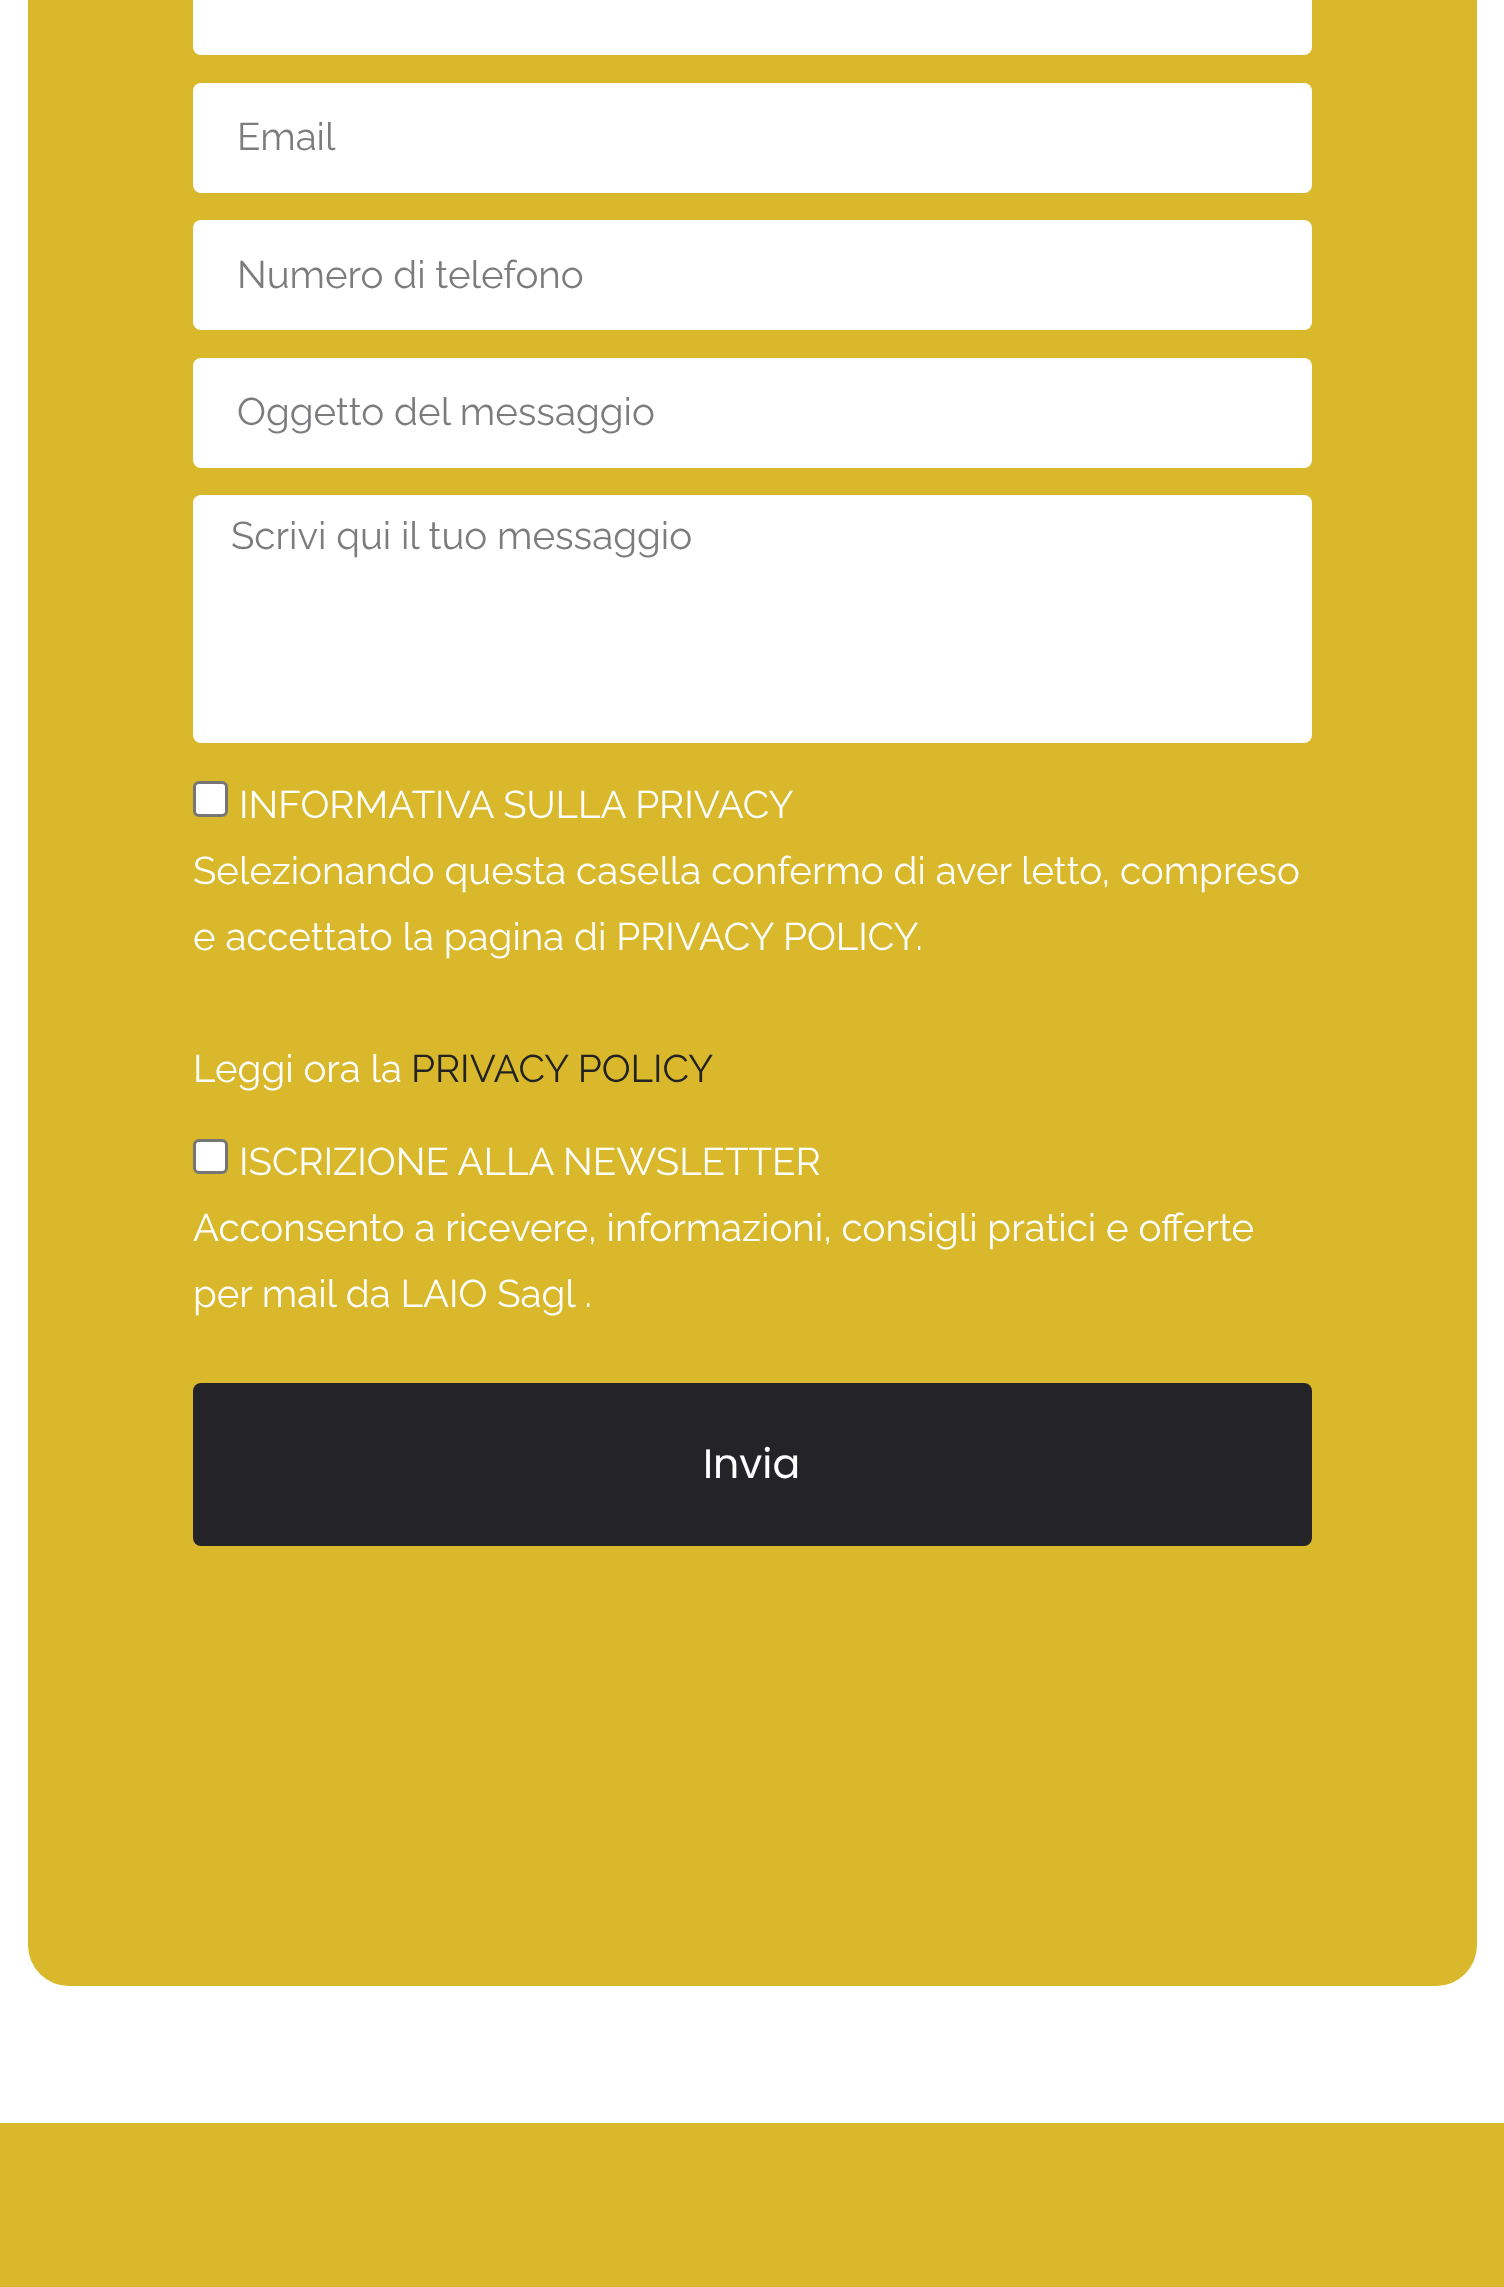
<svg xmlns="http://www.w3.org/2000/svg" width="1504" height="2287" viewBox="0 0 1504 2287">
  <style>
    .t1 { font: 38.5px Raleway; fill: #7c7c7e; }
    .t2 { font: 38.5px Raleway; fill: #fff; }
    .t3 { font: 38.5px Raleway; fill: #222; }
    .t4 { font: 41px Poppins; fill: #fff; }
  </style>
  <rect width="100%" height="100%" fill="#fff"/>
  <rect x="28" y="-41" width="1449" height="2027" rx="41" fill="#d9b82b"/>
  <rect x="193" y="-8" width="1119" height="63" rx="8" fill="#fff"/>
  <rect x="193" y="83" width="1119" height="110" rx="8" fill="#fff"/>
  <text x="237" y="150" class="t1">Email</text>
  <rect x="193" y="220" width="1119" height="110" rx="8" fill="#fff"/>
  <text x="237" y="288" class="t1">Numero di telefono</text>
  <rect x="193" y="358" width="1119" height="110" rx="8" fill="#fff"/>
  <text x="237" y="425" class="t1">Oggetto del messaggio</text>
  <rect x="193" y="495" width="1119" height="248" rx="8" fill="#fff"/>
  <text x="231" y="549" class="t1">Scrivi qui il tuo messaggio</text>
  <rect x="194.5" y="782.5" width="32" height="33" rx="4.5" fill="#fff" stroke="#767676" stroke-width="3"/>
  <text x="239" y="818" class="t2">INFORMATIVA SULLA PRIVACY</text>
  <text x="193" y="884" class="t2">Selezionando questa casella confermo di aver letto, compreso</text>
  <text x="193" y="950" class="t2">e accettato la pagina di PRIVACY POLICY.</text>
  <text x="193" y="1082" class="t2">Leggi ora la</text>
  <text x="411" y="1082" class="t3">PRIVACY POLICY</text>
  <rect x="194.5" y="1140.5" width="32" height="32" rx="4.5" fill="#fff" stroke="#767676" stroke-width="3"/>
  <text x="239" y="1175" class="t2">ISCRIZIONE ALLA NEWSLETTER</text>
  <text x="193" y="1241" class="t2">Acconsento a ricevere, informazioni, consigli pratici e offerte</text>
  <text x="193" y="1307" class="t2">per mail da LAIO Sagl .</text>
  <rect x="193" y="1383" width="1119" height="163" rx="8" fill="#242428"/>
  <text x="703" y="1478" class="t4">Invia</text>
  <rect x="0" y="2123" width="1504" height="164" fill="#d9b82b"/>
</svg>
